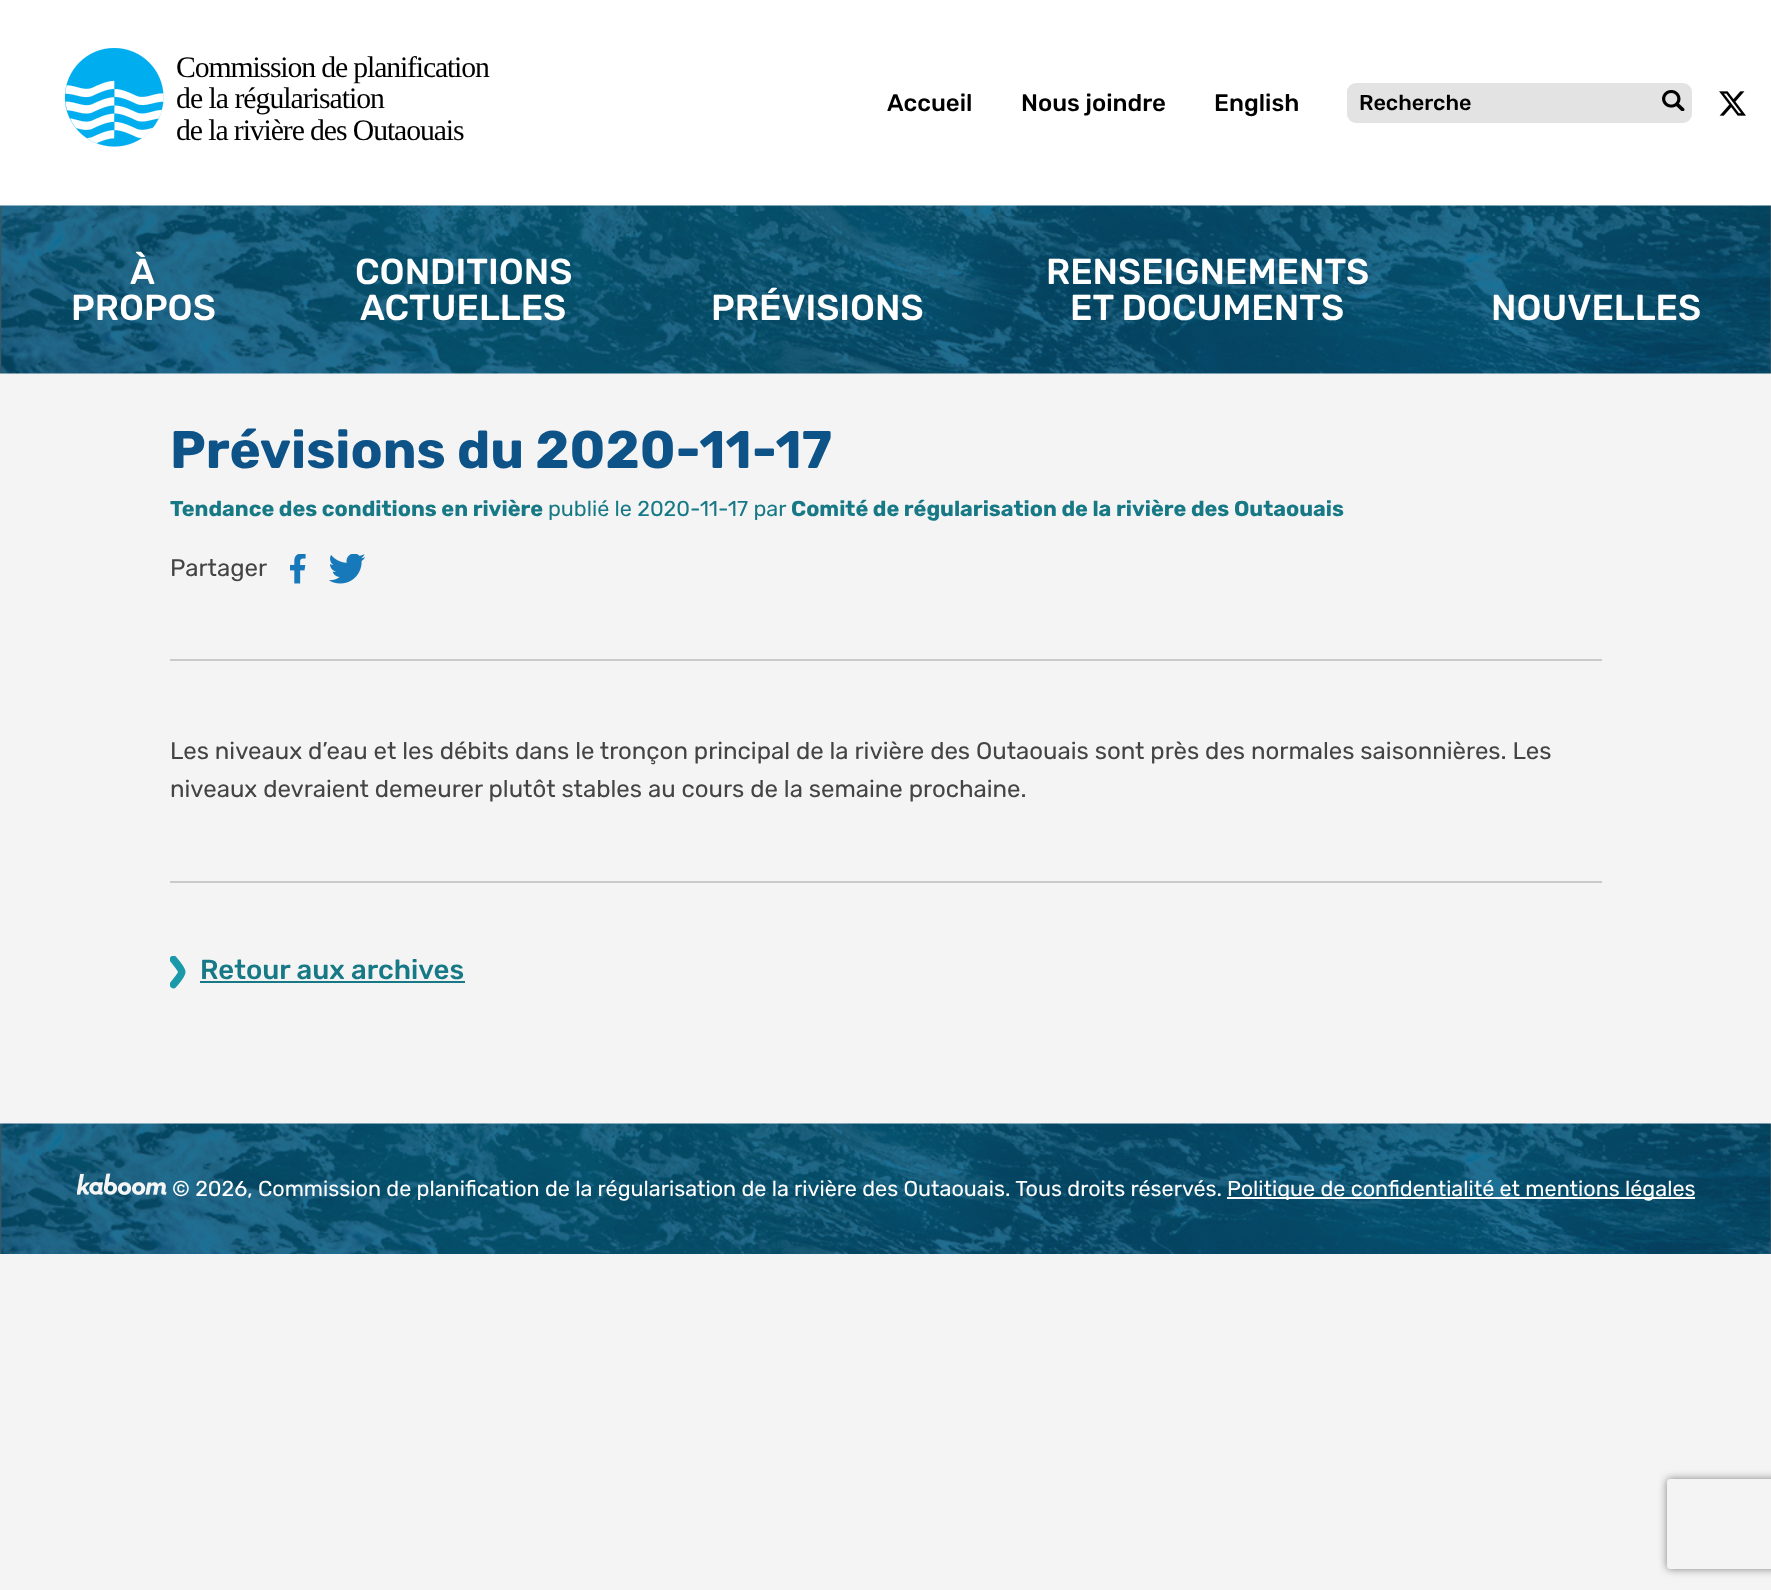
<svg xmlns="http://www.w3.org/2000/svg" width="1771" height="1590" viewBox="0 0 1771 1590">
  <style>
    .t1 { font: 29.75px Liberation Serif; letter-spacing: -1.15px; fill: #000; }
    .t2 { font: 29.75px Liberation Serif; letter-spacing: -1px; fill: #000; }
    .t3 { font: 29.75px Liberation Serif; letter-spacing: -1.1px; fill: #000; }
    .t4 { font: 500 24px Rubik; fill: #000; }
    .t5 { font: 500 21.6px Rubik; fill: #000; }
    .t6 { font: 500 36px Rubik; fill: #fff; }
    .t7 { font: bold 52.75px Rubik; fill: #0d5388; }
    .t8 { font: bold 21.6px Rubik; fill: #177986; }
    .t9 { font: 21.6px Rubik; fill: #177986; }
    .t10 { font: 24px Rubik; fill: #444; }
    .t11 { font: 500 27.5px Rubik; fill: #177986; }
    .t12 { font: 21.6px Rubik; fill: #fff; }
  </style>
  <defs>
    <clipPath id="clip1"><rect x="170" y="956" width="16" height="33"/></clipPath>
    <clipPath id="clip2"><path d="M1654 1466H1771V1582H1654ZM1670 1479H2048C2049.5 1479 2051 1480.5 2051 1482V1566C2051 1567.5 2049.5 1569 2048 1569H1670C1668.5 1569 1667 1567.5 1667 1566V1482C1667 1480.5 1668.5 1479 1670 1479Z" clip-rule="evenodd"/></clipPath>
  </defs>
  <rect width="100%" height="100%" fill="#f4f4f4"/>
  <rect x="0" y="0" width="1771" height="206" fill="#fff"/>
  <image x="64" y="48" width="100" height="99" href="images/1.png"/>
  <text x="176" y="77" class="t1">Commission de planification</text>
  <text x="176" y="108" class="t2">de la régularisation</text>
  <text x="176" y="140" class="t3">de la rivière des Outaouais</text>
  <text x="887" y="111" class="t4">Accueil</text>
  <text x="1021" y="111" class="t4">Nous joindre</text>
  <text x="1214" y="111" class="t4">English</text>
  <rect x="1347" y="83" width="345" height="40" rx="9" fill="#e3e3e3"/>
  <text x="1359" y="110" class="t5">Recherche</text>
  <image x="1662" y="90" width="23" height="21" href="images/2.png"/>
  <image x="1719" y="91" width="27" height="25" href="images/3.png"/>
  <image x="0" y="205" width="1771" height="169" href="images/4.png"/>
  <text x="130" y="284" class="t6">À</text>
  <text x="71" y="320" class="t6">PROPOS</text>
  <text x="355" y="284" class="t6">CONDITIONS</text>
  <text x="360" y="320" class="t6">ACTUELLES</text>
  <text x="711" y="320" class="t6">PRÉVISIONS</text>
  <text x="1046" y="284" class="t6">RENSEIGNEMENTS</text>
  <text x="1070" y="320" class="t6">ET DOCUMENTS</text>
  <text x="1491" y="320" class="t6">NOUVELLES</text>
  <text x="170" y="468" class="t7">Prévisions du 2020-11-17</text>
  <text x="170" y="516" class="t8">Tendance des conditions en rivière</text>
  <text x="548" y="516" class="t9">publié le 2020-11-17 par</text>
  <text x="791" y="516" class="t8">Comité de régularisation de la rivière des Outaouais</text>
  <text x="170" y="576" class="t10">Partager</text>
  <image x="290" y="554" width="16" height="30" href="images/5.png"/>
  <image x="329" y="554" width="36" height="30" href="images/6.png"/>
  <rect x="170" y="659" width="1432" height="2" fill="#cacaca"/>
  <text x="170" y="759" class="t10">Les niveaux d’eau et les débits dans le tronçon principal de la rivière des Outaouais sont près des normales saisonnières. Les</text>
  <text x="170" y="797" class="t10">niveaux devraient demeurer plutôt stables au cours de la semaine prochaine.</text>
  <rect x="170" y="881" width="1432" height="2" fill="#cacaca"/>
  <g clip-path="url(#clip1)">
    <path d="M173.5 984.5C184.5 970.5 184.5 973.5 173.5 959.5" fill="none" stroke="#1a99aa" stroke-width="7.6" stroke-linecap="round"/>
  </g>
  <text x="200" y="979" class="t11">Retour aux archives</text>
  <rect x="200" y="981" width="265" height="2" fill="#177986"/>
  <image x="0" y="1123" width="1771" height="131" href="images/7.png"/>
  <image x="77" y="1173" width="90" height="22" href="images/8.png"/>
  <text x="172" y="1196" class="t12">© 2026, Commission de planification de la régularisation de la rivière des Outaouais. Tous droits réservés.</text>
  <rect x="1227" y="1197" width="468" height="2" fill="#fff"/>
  <text x="1227" y="1196" class="t12">Politique de confidentialité et mentions légales</text>
  <g clip-path="url(#clip2)">
    <rect x="1667" y="1479" width="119" height="90" rx="3" fill="#808080" filter="blur(4px)"/>
  </g>
</svg>
